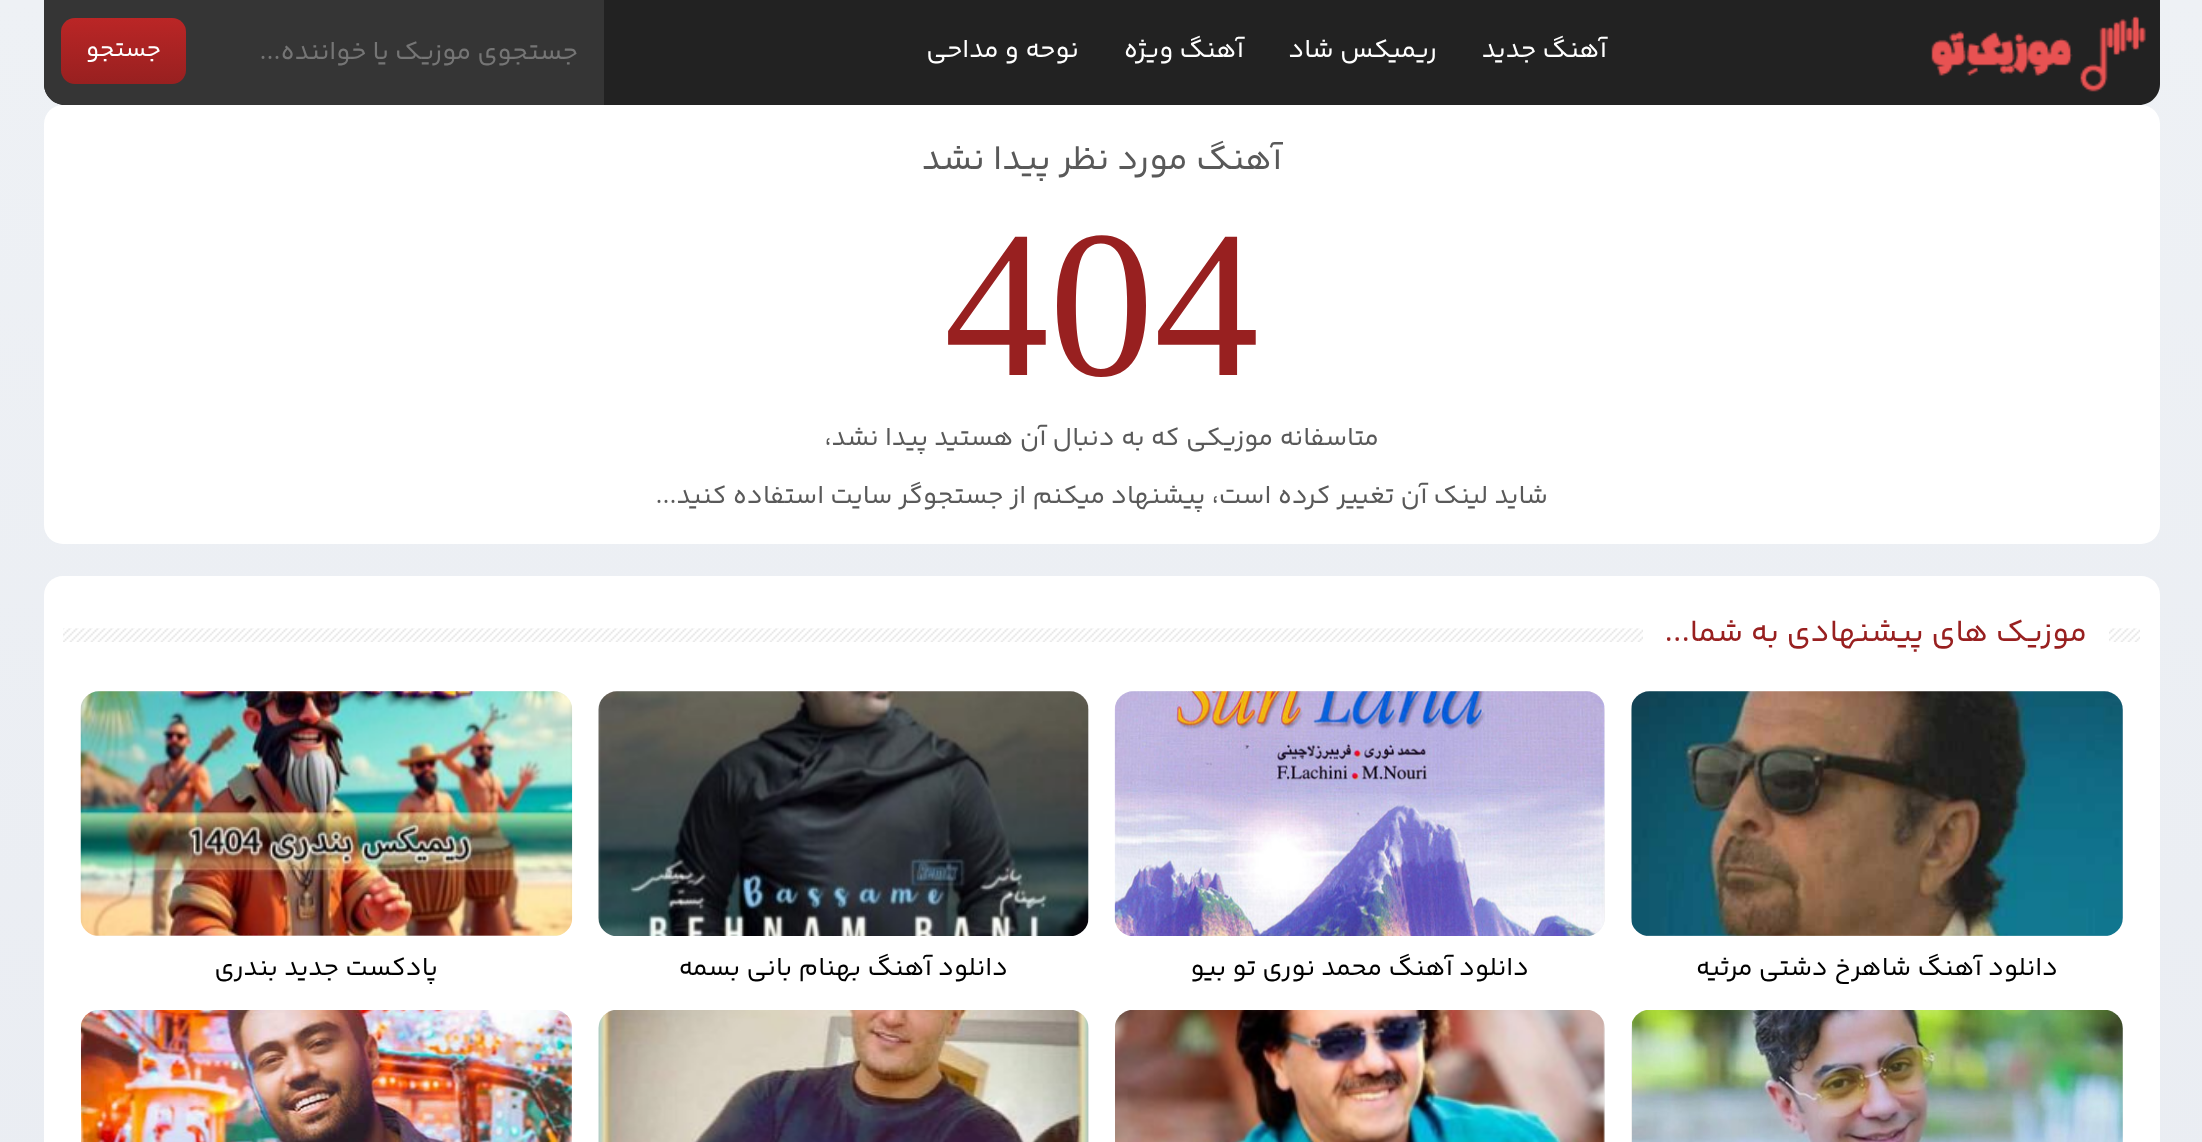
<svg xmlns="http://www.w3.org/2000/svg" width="2202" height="1142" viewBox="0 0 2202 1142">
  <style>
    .t1 { font: 26.25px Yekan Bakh; direction: rtl; fill: #fff; }
    .t2 { font: 26.25px Yekan Bakh; direction: rtl; fill: #757575; }
    .t3 { font: 24.5px Yekan Bakh; direction: rtl; fill: #fff; }
    .t4 { font: 35px Yekan Bakh; direction: rtl; fill: #595959; }
    .t5 { font: 210px Liberation Serif; fill: #982020; }
    .t6 { font: 26.25px Yekan Bakh; direction: rtl; fill: #595959; }
    .t7 { font: 31.5px Yekan Bakh; direction: rtl; fill: #982020; }
    .t8 { font: 26.25px Yekan Bakh; direction: rtl; fill: #000; }
  </style>
  <defs>
    <linearGradient id="g1" gradientUnits="userSpaceOnUse" x1="1102" y1="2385" x2="1102" y2="0"><stop offset="0" stop-color="#e6e9f0"/><stop offset="1" stop-color="#eef1f5"/></linearGradient>
    <linearGradient id="g2" gradientUnits="userSpaceOnUse" x1="123" y1="17" x2="123" y2="84"><stop offset="0" stop-color="#bb2626"/><stop offset="1" stop-color="#982020"/></linearGradient>
  </defs>
  <rect width="100%" height="100%" fill="#fff"/>
  <rect x="0" y="0" width="2202" height="1142" fill="url(#g1)"/>
  <path d="M44 0H2160V84C2160 95.5 2150.5 105 2139 105H65C53.5 105 44 95.5 44 84Z" fill="#222"/>
  <image x="1931" y="15" width="215" height="77" href="images/1.png"/>
  <text x="1607" y="57" class="t1">آهنگ جدید</text>
  <text x="1437" y="57" class="t1">ریمیکس شاد</text>
  <text x="1244" y="57" class="t1">آهنگ ویژه</text>
  <text x="1079" y="57" class="t1">نوحه و مداحی</text>
  <path d="M44 0H604V105H65C53.5 105 44 95.5 44 84Z" fill="#353535"/>
  <text x="578" y="59" class="t2">جستجوی موزیک یا خواننده...</text>
  <rect x="61" y="18" width="125" height="66" rx="14" fill="url(#g2)"/>
  <text x="161" y="56" class="t3">جستجو</text>
  <rect x="44" y="105" width="2116" height="439" rx="19" fill="#fff"/>
  <text x="1282" y="169" class="t4">آهنگ مورد نظر پیدا نشد</text>
  <text x="944" y="375" class="t5">404</text>
  <text x="1379" y="445" class="t6">متاسفانه موزیکی که به دنبال آن هستید پیدا نشد،</text>
  <text x="1548" y="503" class="t6">شاید لینک آن تغییر کرده است، پیشنهاد میکنم از جستجوگر سایت استفاده کنید...</text>
  <rect x="44" y="576" width="2116" height="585" rx="19" fill="#fff"/>
  <image x="63" y="628" width="2077" height="14" href="images/2.png"/>
  <rect x="1643" y="628" width="466" height="14" fill="#fff"/>
  <text x="2087" y="641" class="t7">موزیک های پیشنهادی به شما...</text>
  <rect x="1631" y="691" width="492" height="245" rx="19" fill="#efefef"/>
  <image x="1631" y="691" width="492" height="245" href="images/3.png"/>
  <text x="2058" y="975" class="t8">دانلود آهنگ شاهرخ دشتی مرثیه</text>
  <rect x="1115" y="691" width="490" height="245" rx="19" fill="#efefef"/>
  <image x="1114" y="691" width="491" height="245" href="images/4.png"/>
  <text x="1529" y="975" class="t8">دانلود آهنگ محمد نوری تو بیو</text>
  <rect x="599" y="691" width="490" height="245" rx="19" fill="#efefef"/>
  <image x="598" y="691" width="491" height="245" href="images/5.png"/>
  <text x="1008" y="975" class="t8">دانلود آهنگ بهنام بانی بسمه</text>
  <rect x="81" y="691" width="491" height="245" rx="19" fill="#efefef"/>
  <image x="80" y="691" width="493" height="245" href="images/6.png"/>
  <text x="438" y="975" class="t8">پادکست جدید بندری</text>
  <rect x="1631" y="1010" width="492" height="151" rx="19" fill="#efefef"/>
  <image x="1632" y="1010" width="491" height="132" href="images/7.png"/>
  <rect x="1115" y="1010" width="490" height="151" rx="19" fill="#efefef"/>
  <image x="1115" y="1010" width="490" height="132" href="images/8.png"/>
  <rect x="599" y="1010" width="490" height="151" rx="19" fill="#efefef"/>
  <image x="598" y="1010" width="491" height="132" href="images/9.png"/>
  <image x="81" y="1010" width="491" height="132" href="images/10.png"/>
</svg>
